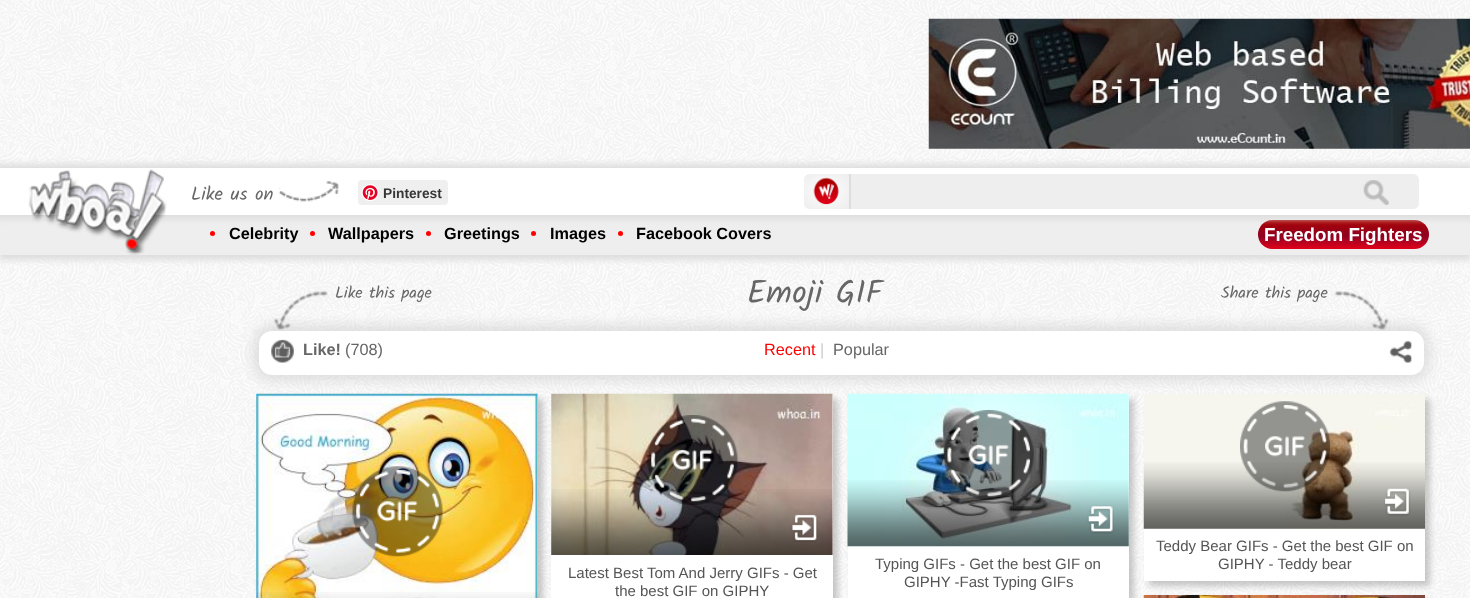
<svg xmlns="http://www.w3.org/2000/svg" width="1470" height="598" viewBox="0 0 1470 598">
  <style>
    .t1 { font: 18.75px Kalam; fill: #666; }
    .t2 { font: bold 13.75px Liberation Sans; fill: #363636; }
    .t3 { font: bold 16.25px Liberation Sans; fill: #000; }
    .t4 { font: bold 18.75px Liberation Sans; fill: #fff; }
    .t5 { font: 16.25px Kalam; fill: #666; }
    .t6 { font: 32.5px Kalam; fill: #666; }
    .t7 { font: bold 16.25px Liberation Sans; fill: #666; }
    .t8 { font: 16.25px Liberation Sans; fill: #666; }
    .t9 { font: 16.25px Liberation Sans; fill: #f00; }
    .t10 { font: 16.25px Liberation Sans; fill: #ccc; }
    .t11 { font: 15px Liberation Sans; fill: #555; }
  </style>
  <defs>
    <linearGradient id="g1" gradientUnits="userSpaceOnUse" x1="1343" y1="220" x2="1343" y2="249"><stop offset="0" stop-color="#a90000"/><stop offset="0.11" stop-color="#a40007"/><stop offset="0.56" stop-color="#8f0222"/><stop offset="1" stop-color="#e1001a"/></linearGradient>
    <radialGradient id="g2" gradientUnits="userSpaceOnUse" cx="0" cy="0" r="1" gradientTransform="matrix(32 0 0 25 826 191)"><stop offset="0" stop-color="#fff"/><stop offset="0.47" stop-color="#f6f6f6"/><stop offset="1" stop-color="#ededed"/></radialGradient>
  </defs>
  <rect width="100%" height="100%" fill="#fff"/>
  <image x="0" y="0" width="1470" height="598" href="images/1.png"/>
  <image x="928" y="18" width="542" height="131" href="images/2.png"/>
  <rect x="-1" y="210" width="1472" height="50" fill="#ddd" filter="blur(3px)"/>
  <rect x="0" y="215" width="1470" height="40" fill="#eee"/>
  <rect x="1258" y="220" width="171" height="29" rx="14.5" fill="url(#g1)"/>
  <rect x="-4" y="164" width="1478" height="55" fill="#ddd" filter="blur(3px)"/>
  <rect x="0" y="168" width="1470" height="47" fill="#fff"/>
  <image x="28" y="169" width="139" height="86" href="images/3.png"/>
  <image x="278" y="181" width="61" height="21" href="images/4.png"/>
  <text x="191" y="200" class="t1">Like us on</text>
  <rect x="358" y="180" width="90" height="25" rx="4" fill="#efefef"/>
  <image x="361" y="184" width="18" height="17" href="images/5.png"/>
  <text x="383" y="198" class="t2">Pinterest</text>
  <path d="M810 174H849V209H810C806.5 209 804 206.5 804 203V180C804 176.5 806.5 174 810 174Z" fill="url(#g2)"/>
  <rect x="849" y="174" width="2" height="35" fill="#ddd"/>
  <image x="813" y="177" width="26" height="28" href="images/6.png"/>
  <path d="M851 174H1413C1416.5 174 1419 176.5 1419 180V203C1419 206.5 1416.5 209 1413 209H851Z" fill="#eee"/>
  <image x="1363" y="180" width="26" height="25" href="images/7.png"/>
  <circle cx="212.5" cy="233.5" r="2.5" fill="#f00"/>
  <text x="229" y="239" class="t3">Celebrity</text>
  <circle cx="312.5" cy="233.5" r="2.5" fill="#f00"/>
  <text x="328" y="239" class="t3">Wallpapers</text>
  <circle cx="428.5" cy="233.5" r="2.5" fill="#f00"/>
  <text x="444" y="239" class="t3">Greetings</text>
  <circle cx="533.5" cy="233.5" r="2.5" fill="#f00"/>
  <text x="550" y="239" class="t3">Images</text>
  <circle cx="620.5" cy="233.5" r="2.5" fill="#f00"/>
  <text x="636" y="239" class="t3">Facebook Covers</text>
  <text x="1264" y="241" class="t4">Freedom Fighters</text>
  <rect x="254" y="326" width="1175" height="54" rx="18" fill="#c8c8c899" filter="blur(7px)"/>
  <image x="273" y="291" width="56" height="39" href="images/8.png"/>
  <text x="335" y="298" class="t5">Like this page</text>
  <text x="747" y="303" class="t6">Emoji GIF</text>
  <image x="1334" y="291" width="55" height="39" href="images/9.png"/>
  <text x="1221" y="298" class="t5">Share this page</text>
  <rect x="259" y="331" width="1165" height="44" rx="13" fill="#fff"/>
  <image x="271" y="339" width="23" height="24" href="images/10.png"/>
  <text x="303" y="355" class="t7">Like!</text>
  <text x="345" y="355" class="t8">(708)</text>
  <text x="764" y="355" class="t9">Recent</text>
  <text x="820" y="355" class="t10">|</text>
  <text x="833" y="355" class="t8">Popular</text>
  <image x="1389" y="341" width="23" height="22" href="images/11.png"/>
  <rect x="261" y="399" width="282" height="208" fill="#5050504d" filter="blur(3px)"/>
  <rect x="256" y="394" width="282" height="204" fill="#fff"/>
  <image x="256" y="393" width="282" height="205" href="images/12.png"/>
  <image x="352" y="466" width="91" height="91" href="images/13.png"/>
  <image x="356" y="470" width="83" height="83" href="images/14.png"/>
  <image x="377" y="501" width="41" height="21" href="images/15.png"/>
  <image x="256" y="592" width="282" height="6" href="images/16.png"/>
  <rect x="556" y="399" width="282" height="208" fill="#5050504d" filter="blur(3px)"/>
  <rect x="551" y="394" width="282" height="204" fill="#fff"/>
  <image x="551" y="393" width="282" height="162" href="images/17.png"/>
  <image x="647" y="415" width="91" height="90" href="images/18.png"/>
  <image x="651" y="418" width="83" height="84" href="images/19.png"/>
  <image x="672" y="449" width="41" height="21" href="images/20.png"/>
  <image x="551" y="489" width="282" height="66" href="images/21.png"/>
  <image x="791" y="514" width="27" height="28" href="images/22.png"/>
  <text x="568" y="578" class="t11">Latest Best Tom And Jerry GIFs - Get</text>
  <text x="615" y="596" class="t11">the best GIF on GIPHY</text>
  <rect x="853" y="399" width="281" height="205" fill="#5050504d" filter="blur(3px)"/>
  <rect x="848" y="394" width="281" height="204" fill="#fff"/>
  <image x="847" y="393" width="282" height="154" href="images/23.png"/>
  <image x="943" y="410" width="91" height="90" href="images/24.png"/>
  <image x="947" y="413" width="83" height="84" href="images/25.png"/>
  <image x="968" y="444" width="41" height="21" href="images/26.png"/>
  <image x="847" y="480" width="282" height="67" href="images/27.png"/>
  <image x="1087" y="505" width="27" height="29" href="images/28.png"/>
  <text x="875" y="569" class="t11">Typing GIFs - Get the best GIF on</text>
  <text x="904" y="587" class="t11">GIPHY -Fast Typing GIFs</text>
  <rect x="1149" y="399" width="281" height="187" fill="#5050504d" filter="blur(3px)"/>
  <rect x="1144" y="528" width="281" height="53" fill="#fff"/>
  <image x="1144" y="394" width="281" height="135" href="images/29.png"/>
  <image x="1240" y="401" width="90" height="91" href="images/30.png"/>
  <image x="1243" y="405" width="84" height="83" href="images/31.png"/>
  <image x="1265" y="436" width="40" height="21" href="images/32.png"/>
  <image x="1143" y="462" width="282" height="67" href="images/33.png"/>
  <image x="1384" y="488" width="27" height="29" href="images/34.png"/>
  <text x="1156" y="551" class="t11">Teddy Bear GIFs - Get the best GIF on</text>
  <text x="1218" y="569" class="t11">GIPHY - Teddy bear</text>
  <rect x="1149" y="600" width="281" height="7" fill="#5050504d" filter="blur(3px)"/>
  <image x="1143" y="595" width="282" height="3" href="images/35.png"/>
</svg>
